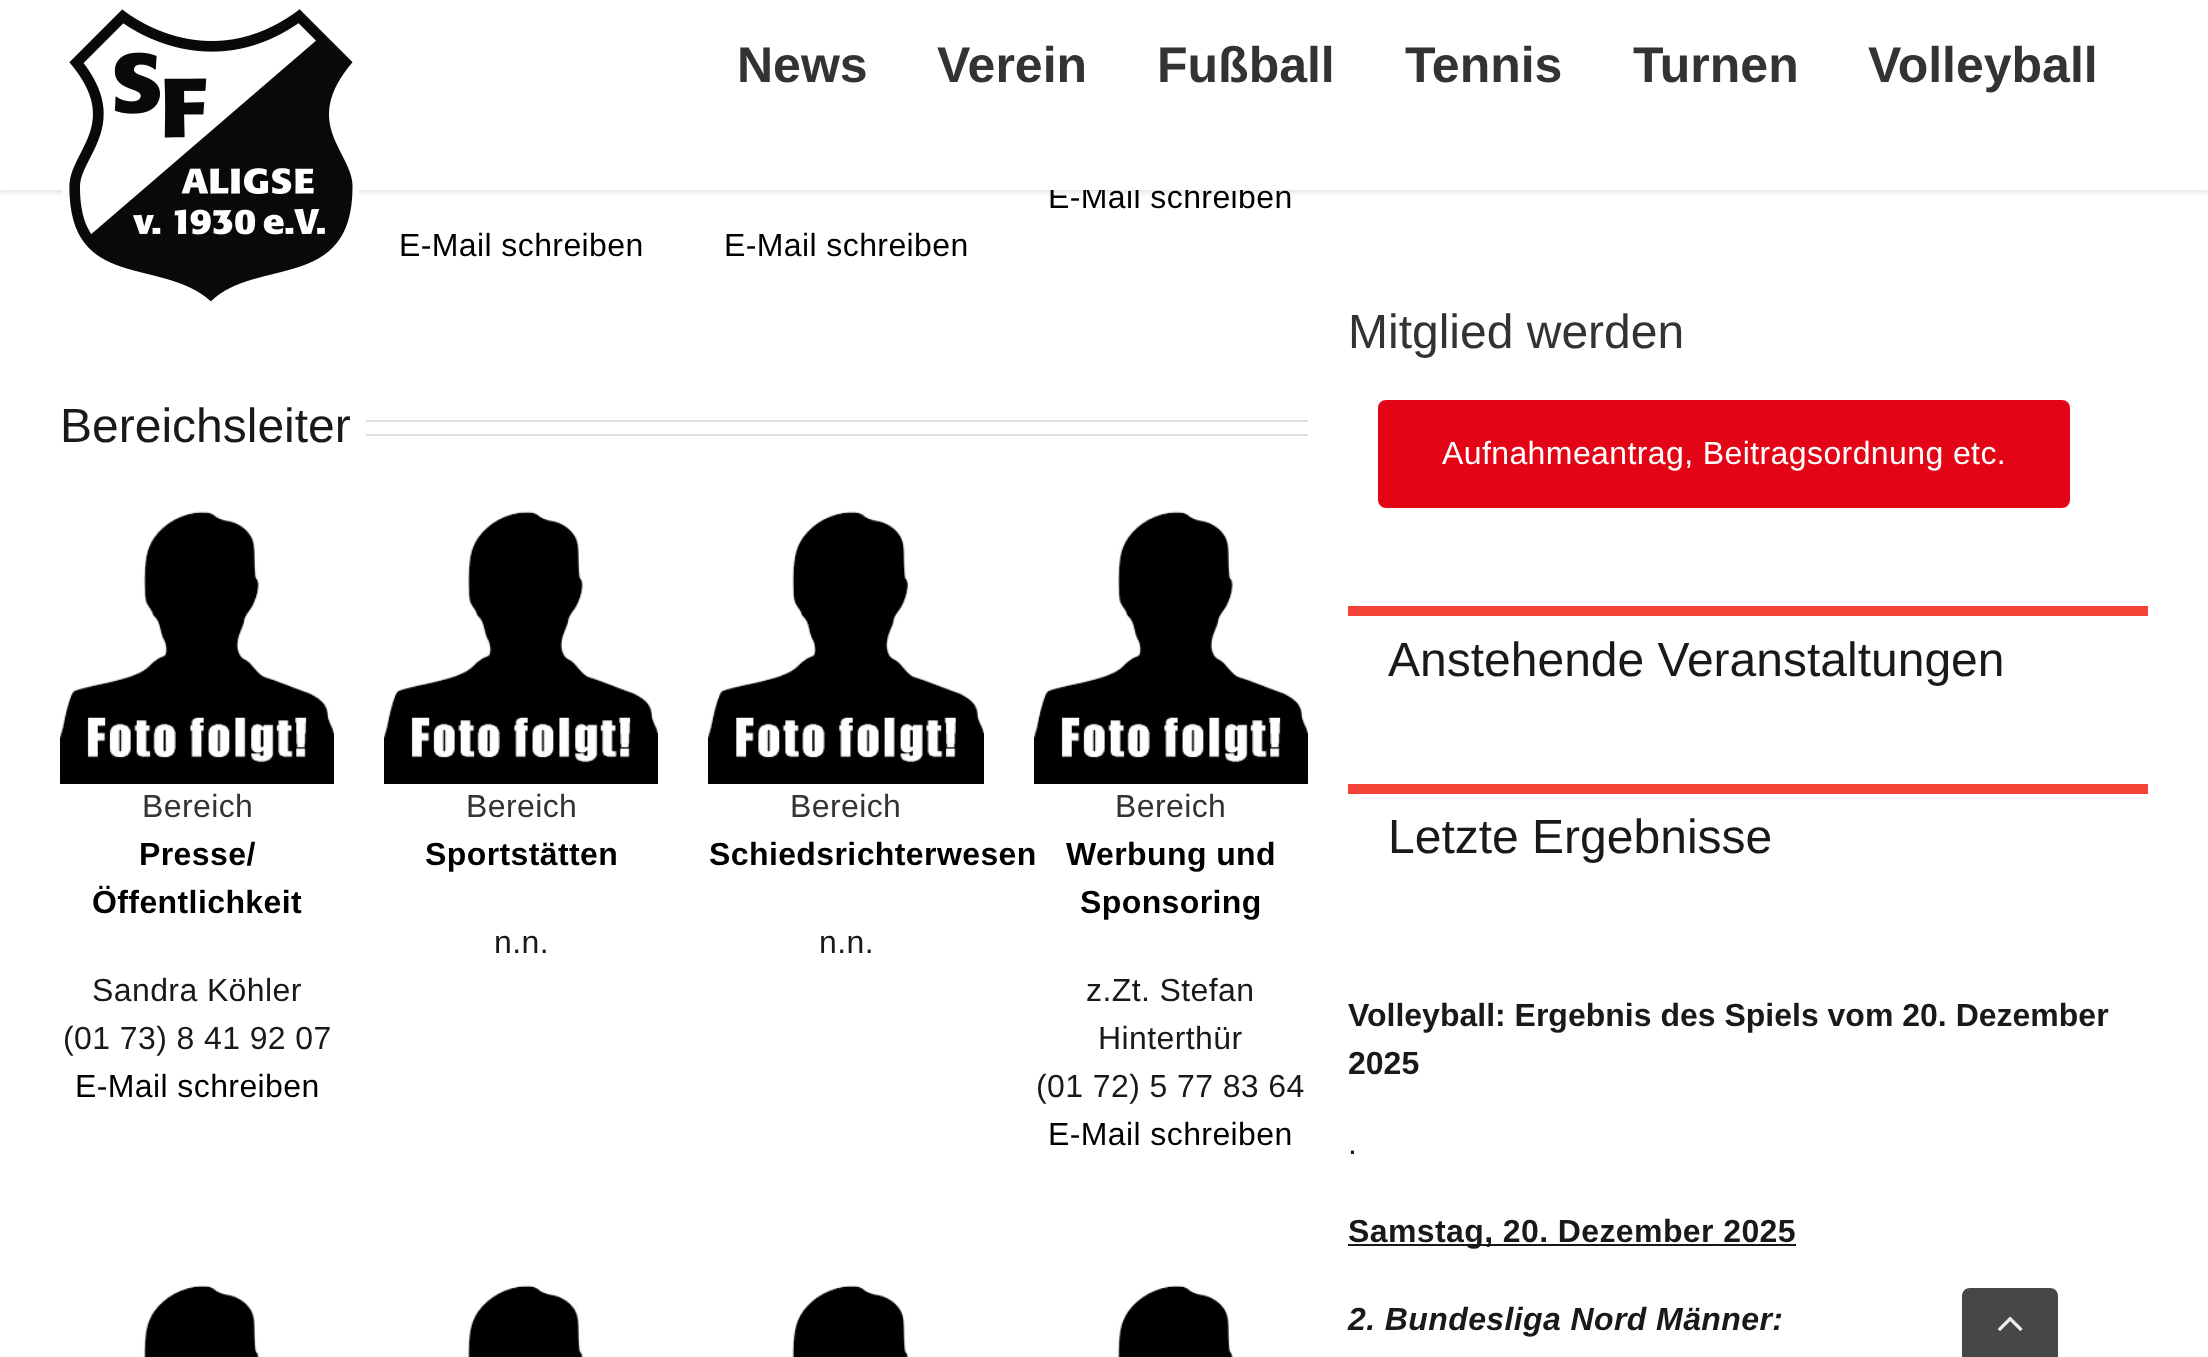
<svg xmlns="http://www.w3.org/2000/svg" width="2208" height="1357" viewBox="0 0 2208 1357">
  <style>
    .t1 { font: 32px Liberation Sans; letter-spacing: 0.4px; fill: #000; }
    .t2 { font: bold 50px Liberation Sans; fill: #333; }
    .t3 { font: 48px Liberation Sans; fill: #191919; }
    .t4 { font: 32px Liberation Sans; letter-spacing: 0.4px; fill: #333; }
    .t5 { font: bold 32px Liberation Sans; letter-spacing: 0.4px; fill: #000; }
    .t6 { font: 32px Liberation Sans; letter-spacing: 0.4px; fill: #191919; }
    .t7 { font: 48px Liberation Sans; fill: #333; }
    .t8 { font: 32px Liberation Sans; letter-spacing: 0.4px; fill: #fff; }
    .t9 { font: bold 32px Liberation Sans; fill: #191919; }
    .t10 { font: bold 32px Liberation Sans; letter-spacing: 0.4px; fill: #191919; }
    .t11 { font: italic bold 32px Liberation Sans; letter-spacing: 0.4px; fill: #191919; }
  </style>
  <rect width="100%" height="100%" fill="#fff"/>
  <rect x="0" y="2" width="2208" height="190" fill="#0000001f" filter="blur(3px)"/>
  <text x="1048" y="208" class="t1">E-Mail schreiben</text>
  <rect x="0" y="0" width="2208" height="190" fill="#fff"/>
  <image x="62" y="9" width="298" height="293" href="images/1.png"/>
  <text x="737" y="82" class="t2">News</text>
  <text x="937" y="82" class="t2">Verein</text>
  <text x="1157" y="82" class="t2">Fußball</text>
  <text x="1405" y="82" class="t2">Tennis</text>
  <text x="1633" y="82" class="t2">Turnen</text>
  <text x="1868" y="82" class="t2">Volleyball</text>
  <text x="399" y="256" class="t1">E-Mail schreiben</text>
  <text x="724" y="256" class="t1">E-Mail schreiben</text>
  <text x="60" y="442" class="t3">Bereichsleiter</text>
  <rect x="366" y="420" width="942" height="2" fill="#e0dede"/>
  <rect x="366" y="434" width="942" height="2" fill="#e0dede"/>
  <image x="60" y="511" width="274" height="273" href="images/2.png"/>
  <text x="142" y="817" class="t4">Bereich</text>
  <text x="139" y="865" class="t5">Presse/</text>
  <text x="92" y="913" class="t5">Öffentlichkeit</text>
  <text x="92" y="1001" class="t6">Sandra Köhler</text>
  <text x="63" y="1049" class="t6">(01 73) 8 41 92 07</text>
  <text x="75" y="1097" class="t1">E-Mail schreiben</text>
  <image x="384" y="511" width="274" height="273" href="images/2.png"/>
  <text x="466" y="817" class="t4">Bereich</text>
  <text x="425" y="865" class="t5">Sportstätten</text>
  <text x="494" y="953" class="t6">n.n.</text>
  <image x="708" y="511" width="276" height="273" href="images/3.png"/>
  <text x="790" y="817" class="t4">Bereich</text>
  <text x="709" y="865" class="t5">Schiedsrichterwesen</text>
  <text x="819" y="953" class="t6">n.n.</text>
  <image x="1034" y="511" width="274" height="273" href="images/2.png"/>
  <text x="1115" y="817" class="t4">Bereich</text>
  <text x="1066" y="865" class="t5">Werbung und</text>
  <text x="1080" y="913" class="t5">Sponsoring</text>
  <text x="1086" y="1001" class="t6">z.Zt. Stefan</text>
  <text x="1098" y="1049" class="t6">Hinterthür</text>
  <text x="1036" y="1097" class="t6">(01 72) 5 77 83 64</text>
  <text x="1048" y="1145" class="t1">E-Mail schreiben</text>
  <image x="143" y="1285" width="116" height="72" href="images/4.png"/>
  <image x="467" y="1285" width="116" height="72" href="images/4.png"/>
  <image x="792" y="1285" width="117" height="72" href="images/5.png"/>
  <image x="1117" y="1285" width="116" height="72" href="images/4.png"/>
  <text x="1348" y="348" class="t7">Mitglied werden</text>
  <rect x="1378" y="400" width="692" height="108" rx="8" fill="#e30516"/>
  <text x="1442" y="464" class="t8">Aufnahmeantrag, Beitragsordnung etc.</text>
  <rect x="1348" y="606" width="800" height="10" fill="#f44336"/>
  <text x="1388" y="676" class="t3">Anstehende Veranstaltungen</text>
  <rect x="1348" y="784" width="800" height="10" fill="#f44336"/>
  <text x="1388" y="853" class="t3">Letzte Ergebnisse</text>
  <text x="1348" y="1026" class="t9">Volleyball: Ergebnis des Spiels vom 20. Dezember</text>
  <text x="1348" y="1074" class="t9">2025</text>
  <text x="1348" y="1154" class="t6">.</text>
  <rect x="1348" y="1244" width="448" height="2" fill="#191919"/>
  <text x="1348" y="1242" class="t10">Samstag, 20. Dezember 2025</text>
  <text x="1348" y="1330" class="t11">2. Bundesliga Nord Männer:</text>
  <path d="M1970 1288H2050C2054.5 1288 2058 1291.5 2058 1296V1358H1962V1296C1962 1291.5 1965.5 1288 1970 1288Z" fill="#474747"/>
  <image x="1998" y="1316" width="25" height="15" href="images/6.png"/>
</svg>
